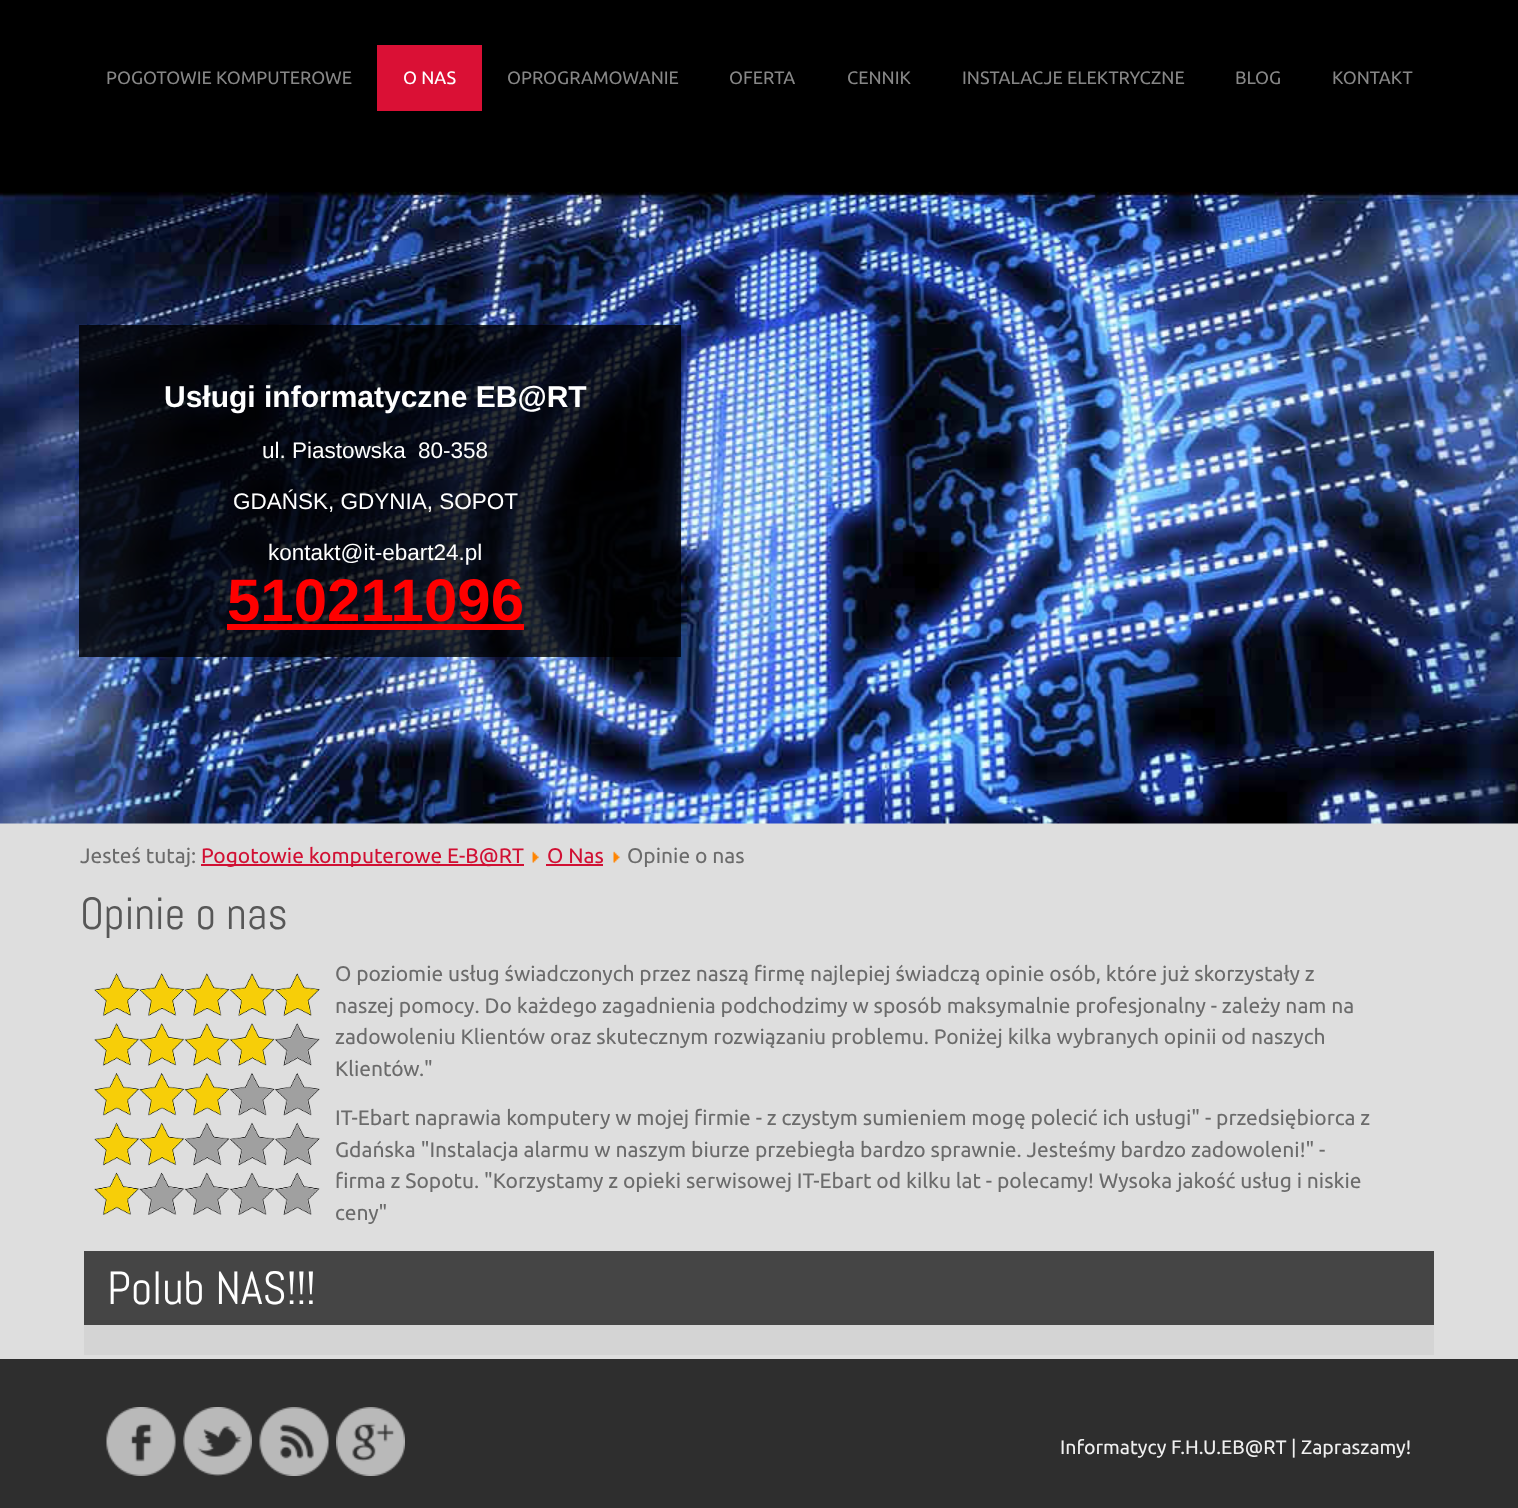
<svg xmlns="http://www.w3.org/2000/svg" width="1518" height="1508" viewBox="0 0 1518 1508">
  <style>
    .t1 { font: 18px Ubuntu; fill: #878787; }
    .t2 { font: 18px Ubuntu; fill: #fff; }
    .t3 { font: bold 30px Liberation Sans; fill: #fff; }
    .t4 { font: 22.5px Liberation Sans; fill: #fff; }
    .t5 { font: bold 60px Liberation Sans; fill: #f00; }
    .t6 { font: 21px Ubuntu; fill: #6b6b6b; }
    .t7 { font: 21px Ubuntu; fill: #d11033; }
    .t8 { font: 45px Abel; fill: #575757; }
    .t9 { font: 46.5px Abel; fill: #fff; }
    .t10 { font: 19.5px Ubuntu; fill: #f0f0f0; }
  </style>
  <rect width="100%" height="100%" fill="#dedede"/>
  <image x="0" y="0" width="1518" height="824" href="images/1.png"/>
  <rect x="79" y="325" width="602" height="332" fill="#000000cc"/>
  <text x="106" y="84" class="t1">POGOTOWIE KOMPUTEROWE</text>
  <rect x="377" y="45" width="105" height="66" fill="#da1035"/>
  <text x="403" y="84" class="t2">O NAS</text>
  <text x="507" y="84" class="t1">OPROGRAMOWANIE</text>
  <text x="729" y="84" class="t1">OFERTA</text>
  <text x="847" y="84" class="t1">CENNIK</text>
  <text x="962" y="84" class="t1">INSTALACJE ELEKTRYCZNE</text>
  <text x="1235" y="84" class="t1">BLOG</text>
  <text x="1332" y="84" class="t1">KONTAKT</text>
  <text x="164" y="407" class="t3">Usługi informatyczne EB@RT</text>
  <text x="262" y="458" class="t4">ul. Piastowska</text>
  <text x="418" y="458" class="t4">80-358</text>
  <text x="233" y="509" class="t4">GDAŃSK, GDYNIA, SOPOT</text>
  <text x="268" y="560" class="t4">kontakt@it-ebart24.pl</text>
  <text x="227" y="621" class="t5">510211096</text>
  <rect x="227" y="624" width="297" height="6" fill="#f00"/>
  <text x="80" y="863" class="t6">Jesteś tutaj:</text>
  <rect x="201" y="864" width="323" height="2" fill="#d11033"/>
  <text x="201" y="863" class="t7">Pogotowie komputerowe E-B@RT</text>
  <image x="532" y="851" width="7" height="12" href="images/2.png"/>
  <text x="547" y="863" class="t7">O Nas</text>
  <rect x="546" y="864" width="57" height="2" fill="#d11033"/>
  <image x="613" y="851" width="7" height="12" href="images/3.png"/>
  <text x="627" y="863" class="t6">Opinie o nas</text>
  <text x="80" y="929" class="t8">Opinie o nas</text>
  <image x="94" y="973" width="226" height="242" href="images/4.png"/>
  <text x="335" y="981" class="t6">O poziomie usług świadczonych przez naszą firmę najlepiej świadczą opinie osób, które już skorzystały z</text>
  <text x="335" y="1013" class="t6">naszej pomocy. Do każdego zagadnienia podchodzimy w sposób maksymalnie profesjonalny - zależy nam na</text>
  <text x="335" y="1044" class="t6">zadowoleniu Klientów oraz skutecznym rozwiązaniu problemu. Poniżej kilka wybranych opinii od naszych</text>
  <text x="335" y="1076" class="t6">Klientów."</text>
  <text x="335" y="1125" class="t6">IT-Ebart naprawia komputery w mojej firmie - z czystym sumieniem mogę polecić ich usługi" - przedsiębiorca z</text>
  <text x="335" y="1157" class="t6">Gdańska "Instalacja alarmu w naszym biurze przebiegła bardzo sprawnie. Jesteśmy bardzo zadowoleni!" -</text>
  <text x="335" y="1188" class="t6">firma z Sopotu. "Korzystamy z opieki serwisowej IT-Ebart od kilku lat - polecamy! Wysoka jakość usług i niskie</text>
  <text x="335" y="1220" class="t6">ceny"</text>
  <rect x="84" y="1325" width="1350" height="30" fill="#d4d4d4"/>
  <rect x="84" y="1251" width="1350" height="74" fill="#454545"/>
  <text x="107" y="1304" class="t9">Polub NAS!!!</text>
  <rect x="0" y="1359" width="1518" height="149" fill="#2e2e2e"/>
  <image x="106" y="1407" width="70" height="69" href="images/5.png"/>
  <image x="183" y="1407" width="69" height="69" href="images/6.png"/>
  <image x="259" y="1407" width="70" height="69" href="images/7.png"/>
  <image x="336" y="1407" width="69" height="69" href="images/8.png"/>
  <text x="1060" y="1454" class="t10">Informatycy F.H.U.EB@RT | Zapraszamy!</text>
</svg>
